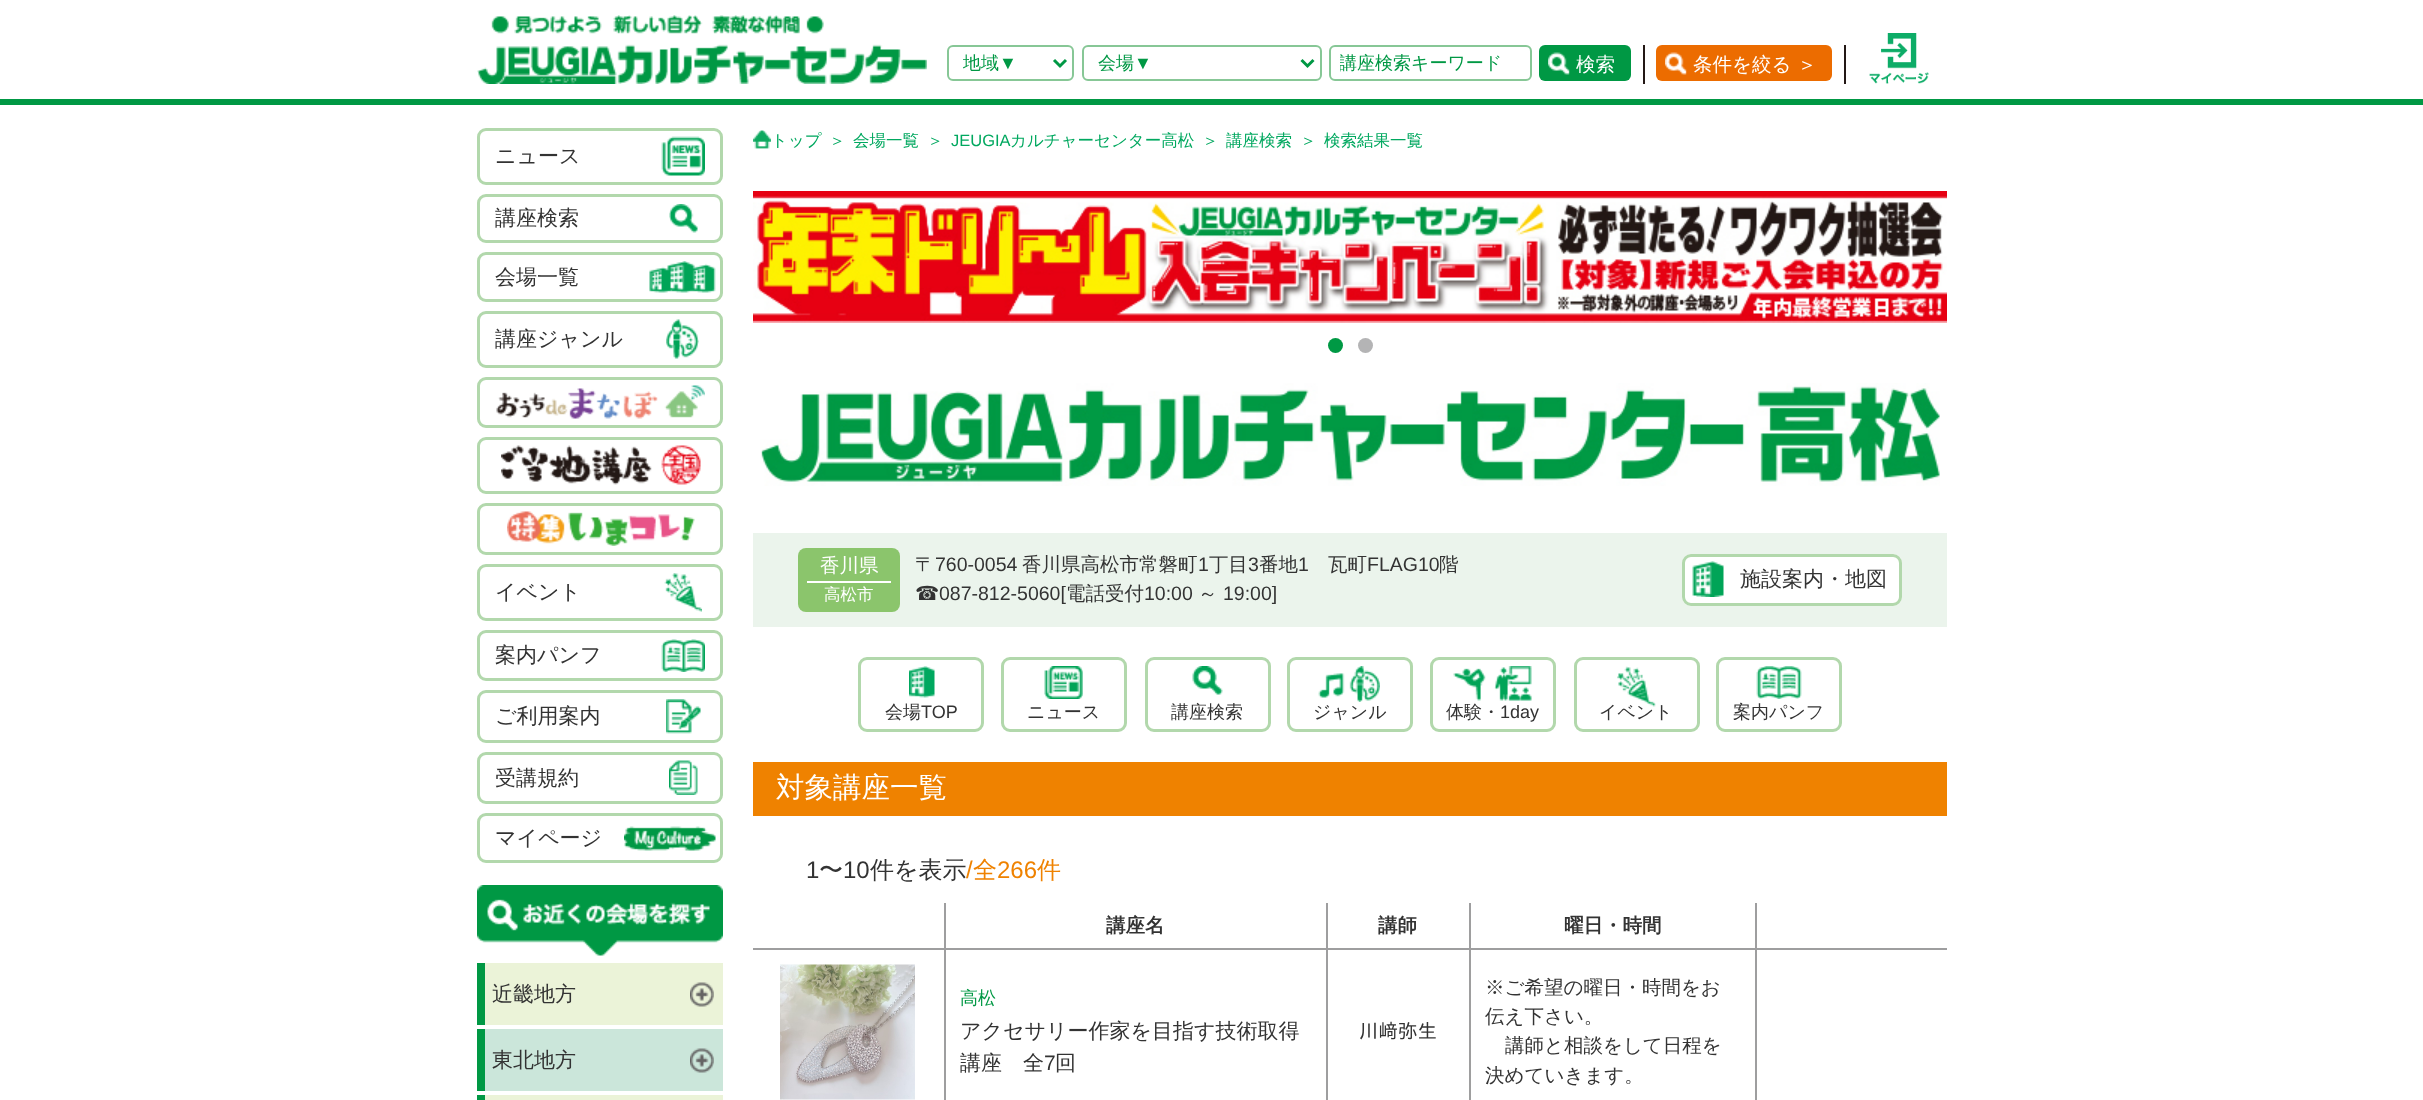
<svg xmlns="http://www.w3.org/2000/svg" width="2423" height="1100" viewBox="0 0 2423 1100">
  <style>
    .t1 { font: 500 18px WenQuanYi Zen Hei; fill: #009844; }
    .t2 { font: 18px Liberation Sans; fill: #009844; }
    .t3 { font: 500 19.5px WenQuanYi Zen Hei; fill: #fff; }
    .t4 { font: 500 21px WenQuanYi Zen Hei; fill: #333; }
    .t5 { font: 500 16.5px WenQuanYi Zen Hei; fill: #00a85f; }
    .t6 { font: 16.5px Liberation Sans; fill: #00a85f; }
    .t7 { font: 500 16.5px WenQuanYi Zen Hei; fill: #fff; }
    .t8 { font: 500 19.5px WenQuanYi Zen Hei; fill: #333; }
    .t9 { font: 19.5px Liberation Sans; fill: #333; }
    .t10 { font: 19.5px DejaVu Sans; fill: #333; }
    .t11 { font: 500 18px WenQuanYi Zen Hei; fill: #333; }
    .t12 { font: 18px Liberation Sans; fill: #333; }
    .t13 { font: 500 28.5px WenQuanYi Zen Hei; fill: #fff; }
    .t14 { font: 24px Liberation Sans; fill: #333; }
    .t15 { font: 500 24px WenQuanYi Zen Hei; fill: #333; }
    .t16 { font: 24px Liberation Sans; fill: #ef8200; }
    .t17 { font: 500 24px WenQuanYi Zen Hei; fill: #ef8200; }
    .t18 { font: bold 19.5px WenQuanYi Zen Hei; fill: #333; }
    .t19 { font: 21px Liberation Sans; fill: #333; }
    .t20 { font: 19.5px IPAGothic; fill: #333; }
  </style>
  <defs>
    <clipPath id="clip1"><rect x="1340" y="51" width="181" height="26"/></clipPath>
  </defs>
  <rect width="100%" height="100%" fill="#fff"/>
  <rect x="0" y="99" width="2423" height="6" fill="#009844"/>
  <image x="477" y="15" width="450" height="69" href="images/1.png"/>
  <rect x="1643" y="45" width="2" height="39" fill="#231815"/>
  <rect x="948" y="46" width="125" height="34" rx="5" fill="none" stroke="#87c796" stroke-width="2"/>
  <path d="M1054 60L1060 66L1066 60" fill="none" stroke="#009844" stroke-width="3"/>
  <text x="963" y="69" class="t1">地域</text>
  <text x="999" y="69" class="t2">▼</text>
  <rect x="1083" y="46" width="238" height="34" rx="5" fill="none" stroke="#87c796" stroke-width="2"/>
  <path d="M1301.5 60L1307.5 66L1313.5 60" fill="none" stroke="#009844" stroke-width="3"/>
  <text x="1098" y="69" class="t1">会場</text>
  <text x="1134" y="69" class="t2">▼</text>
  <rect x="1330" y="46" width="201" height="34" rx="5" fill="none" stroke="#87c796" stroke-width="2"/>
  <g clip-path="url(#clip1)">
    <text x="1339" y="69" class="t1">講座検索キーワード</text>
  </g>
  <rect x="1539" y="45" width="92" height="36" rx="6" fill="#009844"/>
  <image x="1548" y="52" width="22" height="23" href="images/2.png"/>
  <text x="1576" y="71" class="t3">検索</text>
  <rect x="1844" y="45" width="2" height="39" fill="#231815"/>
  <rect x="1656" y="45" width="176" height="36" rx="6" fill="#ec6c00"/>
  <image x="1665" y="52" width="22" height="23" href="images/3.png"/>
  <text x="1693" y="71" class="t3">条件を絞る ＞</text>
  <image x="1869" y="33" width="60" height="51" href="images/4.png"/>
  <rect x="478.5" y="129.5" width="243" height="54" rx="7.5" fill="none" stroke="#b2d8ac" stroke-width="3"/>
  <text x="495" y="163" class="t4">ニュース</text>
  <image x="661" y="136" width="44" height="40" href="images/5.png"/>
  <rect x="478.5" y="195.5" width="243" height="46" rx="7.5" fill="none" stroke="#b2d8ac" stroke-width="3"/>
  <text x="495" y="225" class="t4">講座検索</text>
  <image x="669" y="204" width="29" height="29" href="images/6.png"/>
  <rect x="478.5" y="253.5" width="243" height="47" rx="7.5" fill="none" stroke="#b2d8ac" stroke-width="3"/>
  <text x="495" y="284" class="t4">会場一覧</text>
  <image x="649" y="261" width="67" height="32" href="images/7.png"/>
  <rect x="478.5" y="312.5" width="243" height="54" rx="7.5" fill="none" stroke="#b2d8ac" stroke-width="3"/>
  <text x="495" y="346" class="t4">講座ジャンル</text>
  <image x="666" y="319" width="33" height="40" href="images/8.png"/>
  <rect x="478.5" y="378.5" width="243" height="48" rx="7.5" fill="none" stroke="#b2d8ac" stroke-width="3"/>
  <image x="496" y="385" width="209" height="34" href="images/9.png"/>
  <rect x="478.5" y="438.5" width="243" height="54" rx="7.5" fill="none" stroke="#b2d8ac" stroke-width="3"/>
  <image x="501" y="445" width="200" height="40" href="images/10.png"/>
  <rect x="478.5" y="504.5" width="243" height="49" rx="7.5" fill="none" stroke="#b2d8ac" stroke-width="3"/>
  <image x="507" y="511" width="188" height="35" href="images/11.png"/>
  <rect x="478.5" y="565.5" width="243" height="54" rx="7.5" fill="none" stroke="#b2d8ac" stroke-width="3"/>
  <text x="495" y="599" class="t4">イベント</text>
  <image x="664" y="573" width="38" height="39" href="images/12.png"/>
  <rect x="478.5" y="631.5" width="243" height="48" rx="7.5" fill="none" stroke="#b2d8ac" stroke-width="3"/>
  <text x="495" y="662" class="t4">案内パンフ</text>
  <image x="661" y="639" width="44" height="33" href="images/13.png"/>
  <rect x="478.5" y="691.5" width="243" height="50" rx="7.5" fill="none" stroke="#b2d8ac" stroke-width="3"/>
  <text x="495" y="723" class="t4">ご利用案内</text>
  <image x="666" y="699" width="35" height="35" href="images/14.png"/>
  <rect x="478.5" y="753.5" width="243" height="49" rx="7.5" fill="none" stroke="#b2d8ac" stroke-width="3"/>
  <text x="495" y="785" class="t4">受講規約</text>
  <image x="669" y="760" width="29" height="35" href="images/15.png"/>
  <rect x="478.5" y="814.5" width="243" height="47" rx="7.5" fill="none" stroke="#b2d8ac" stroke-width="3"/>
  <text x="495" y="845" class="t4">マイページ</text>
  <image x="624" y="826" width="92" height="25" href="images/16.png"/>
  <image x="477" y="885" width="246" height="71" href="images/17.png"/>
  <rect x="485" y="963" width="238" height="62" fill="#ebf3d8"/>
  <image x="690" y="982" width="24" height="25" href="images/18.png"/>
  <rect x="477" y="963" width="8" height="62" fill="#009844"/>
  <text x="492" y="1001" class="t4">近畿地方</text>
  <rect x="485" y="1029" width="238" height="62" fill="#cbe6da"/>
  <image x="690" y="1048" width="24" height="25" href="images/19.png"/>
  <rect x="477" y="1029" width="8" height="62" fill="#009844"/>
  <text x="492" y="1067" class="t4">東北地方</text>
  <rect x="477" y="1095" width="246" height="5" fill="#ebf3d8"/>
  <rect x="477" y="1095" width="8" height="5" fill="#009844"/>
  <image x="753" y="130" width="18" height="19" href="images/20.png"/>
  <text x="771" y="146" class="t5">トップ</text>
  <text x="829" y="146" class="t5">＞</text>
  <text x="853" y="146" class="t5">会場一覧</text>
  <text x="927" y="146" class="t5">＞</text>
  <text x="951" y="146" class="t6">JEUGIA</text>
  <text x="1010" y="146" class="t5">カルチャーセンター高松</text>
  <text x="1202" y="146" class="t5">＞</text>
  <text x="1226" y="146" class="t5">講座検索</text>
  <text x="1300" y="146" class="t5">＞</text>
  <text x="1324" y="146" class="t5">検索結果一覧</text>
  <image x="753" y="191" width="1194" height="132" href="images/21.png"/>
  <circle cx="1335.5" cy="345.5" r="7.5" fill="#094"/>
  <circle cx="1365.5" cy="345.5" r="7.5" fill="#b4b4b5"/>
  <image x="760" y="383" width="1180" height="103" href="images/22.png"/>
  <rect x="753" y="533" width="1194" height="94" fill="#ebf4ec"/>
  <rect x="798" y="548" width="102" height="64" rx="8" fill="#8bc56c"/>
  <rect x="807" y="581" width="84" height="2" fill="#fff"/>
  <text x="820" y="572" class="t3">香川県</text>
  <text x="824" y="600" class="t7">高松市</text>
  <text x="915" y="571" class="t8">〒</text>
  <text x="935" y="571" class="t9">760-0054</text>
  <text x="1022" y="571" class="t8">香川県高松市常磐町</text>
  <text x="1198" y="571" class="t9">1</text>
  <text x="1209" y="571" class="t8">丁目</text>
  <text x="1248" y="571" class="t9">3</text>
  <text x="1259" y="571" class="t8">番地</text>
  <text x="1298" y="571" class="t9">1</text>
  <text x="1328" y="571" class="t8">瓦町</text>
  <text x="1367" y="571" class="t9">FLAG10</text>
  <text x="1439" y="571" class="t8">階</text>
  <text x="915" y="600" class="t10">☎︎</text>
  <text x="939" y="600" class="t9">087-812-5060[</text>
  <text x="1066" y="600" class="t8">電話受付</text>
  <text x="1144" y="600" class="t9">10:00</text>
  <text x="1198" y="600" class="t8">～</text>
  <text x="1223" y="600" class="t9">19:00]</text>
  <rect x="1682" y="554" width="220" height="52" rx="9" fill="#fff"/>
  <image x="1692" y="561" width="32" height="36" href="images/23.png"/>
  <rect x="1683.5" y="555.5" width="217" height="49" rx="7.5" fill="none" stroke="#b2d8ac" stroke-width="3"/>
  <text x="1740" y="586" class="t4">施設案内・地図</text>
  <image x="909" y="666" width="26" height="32" href="images/24.png"/>
  <rect x="859.5" y="658.5" width="123" height="72" rx="7.5" fill="none" stroke="#b2d8ac" stroke-width="3"/>
  <text x="885" y="718" class="t11">会場</text>
  <text x="921" y="718" class="t12">TOP</text>
  <image x="1044" y="666" width="39" height="33" href="images/25.png"/>
  <rect x="1002.5" y="658.5" width="123" height="72" rx="7.5" fill="none" stroke="#b2d8ac" stroke-width="3"/>
  <text x="1027" y="718" class="t11">ニュース</text>
  <image x="1192" y="666" width="31" height="29" href="images/26.png"/>
  <rect x="1146.5" y="658.5" width="123" height="72" rx="7.5" fill="none" stroke="#b2d8ac" stroke-width="3"/>
  <text x="1171" y="718" class="t11">講座検索</text>
  <image x="1318" y="666" width="62" height="36" href="images/27.png"/>
  <rect x="1288.5" y="658.5" width="123" height="72" rx="7.5" fill="none" stroke="#b2d8ac" stroke-width="3"/>
  <text x="1313" y="718" class="t11">ジャンル</text>
  <image x="1453" y="666" width="79" height="35" href="images/28.png"/>
  <rect x="1431.5" y="658.5" width="123" height="72" rx="7.5" fill="none" stroke="#b2d8ac" stroke-width="3"/>
  <text x="1446" y="718" class="t11">体験・</text>
  <text x="1500" y="718" class="t12">1day</text>
  <image x="1617" y="666" width="39" height="41" href="images/29.png"/>
  <rect x="1575.5" y="658.5" width="123" height="72" rx="7.5" fill="none" stroke="#b2d8ac" stroke-width="3"/>
  <text x="1599" y="718" class="t11">イベント</text>
  <image x="1756" y="666" width="46" height="33" href="images/30.png"/>
  <rect x="1717.5" y="658.5" width="123" height="72" rx="7.5" fill="none" stroke="#b2d8ac" stroke-width="3"/>
  <text x="1733" y="718" class="t11">案内パンフ</text>
  <rect x="753" y="762" width="1194" height="54" fill="#ef8200"/>
  <text x="776" y="797" class="t13">対象講座一覧</text>
  <text x="806" y="878" class="t14">1</text>
  <text x="819" y="878" class="t15">〜</text>
  <text x="843" y="878" class="t14">10</text>
  <text x="870" y="878" class="t15">件を表示</text>
  <text x="966" y="878" class="t16">/</text>
  <text x="973" y="878" class="t17">全</text>
  <text x="997" y="878" class="t16">266</text>
  <text x="1037" y="878" class="t17">件</text>
  <rect x="1755" y="948" width="2" height="152" fill="#9e9e9f"/>
  <rect x="1755" y="948" width="192" height="2" fill="#9e9e9f"/>
  <rect x="1755" y="903" width="2" height="47" fill="#9e9e9f"/>
  <rect x="1469" y="948" width="2" height="152" fill="#9e9e9f"/>
  <rect x="1469" y="948" width="288" height="2" fill="#9e9e9f"/>
  <rect x="1469" y="903" width="2" height="47" fill="#9e9e9f"/>
  <rect x="1326" y="948" width="2" height="152" fill="#9e9e9f"/>
  <rect x="1326" y="948" width="144" height="2" fill="#9e9e9f"/>
  <rect x="1326" y="903" width="2" height="47" fill="#9e9e9f"/>
  <rect x="944" y="948" width="2" height="152" fill="#9e9e9f"/>
  <rect x="944" y="948" width="384" height="2" fill="#9e9e9f"/>
  <rect x="944" y="903" width="2" height="47" fill="#9e9e9f"/>
  <text x="1106" y="932" class="t18">講座名</text>
  <text x="1378" y="932" class="t18">講師</text>
  <text x="1564" y="932" class="t18">曜日・時間</text>
  <rect x="753" y="948" width="192" height="2" fill="#9e9e9f"/>
  <image x="780" y="964" width="135" height="136" href="images/31.png"/>
  <text x="960" y="1004" class="t1">高松</text>
  <text x="960" y="1038" class="t4">アクセサリー作家を目指す技術取得</text>
  <text x="960" y="1070" class="t4">講座　全</text>
  <text x="1044" y="1070" class="t19">7</text>
  <text x="1055" y="1070" class="t4">回</text>
  <text x="1359" y="1038" class="t20">川﨑弥生</text>
  <text x="1485" y="994" class="t8">※ご希望の曜日・時間をお</text>
  <text x="1485" y="1023" class="t8">伝え下さい。</text>
  <text x="1505" y="1052" class="t8">講師と相談をして日程を</text>
  <text x="1485" y="1082" class="t8">決めていきます。</text>
</svg>
